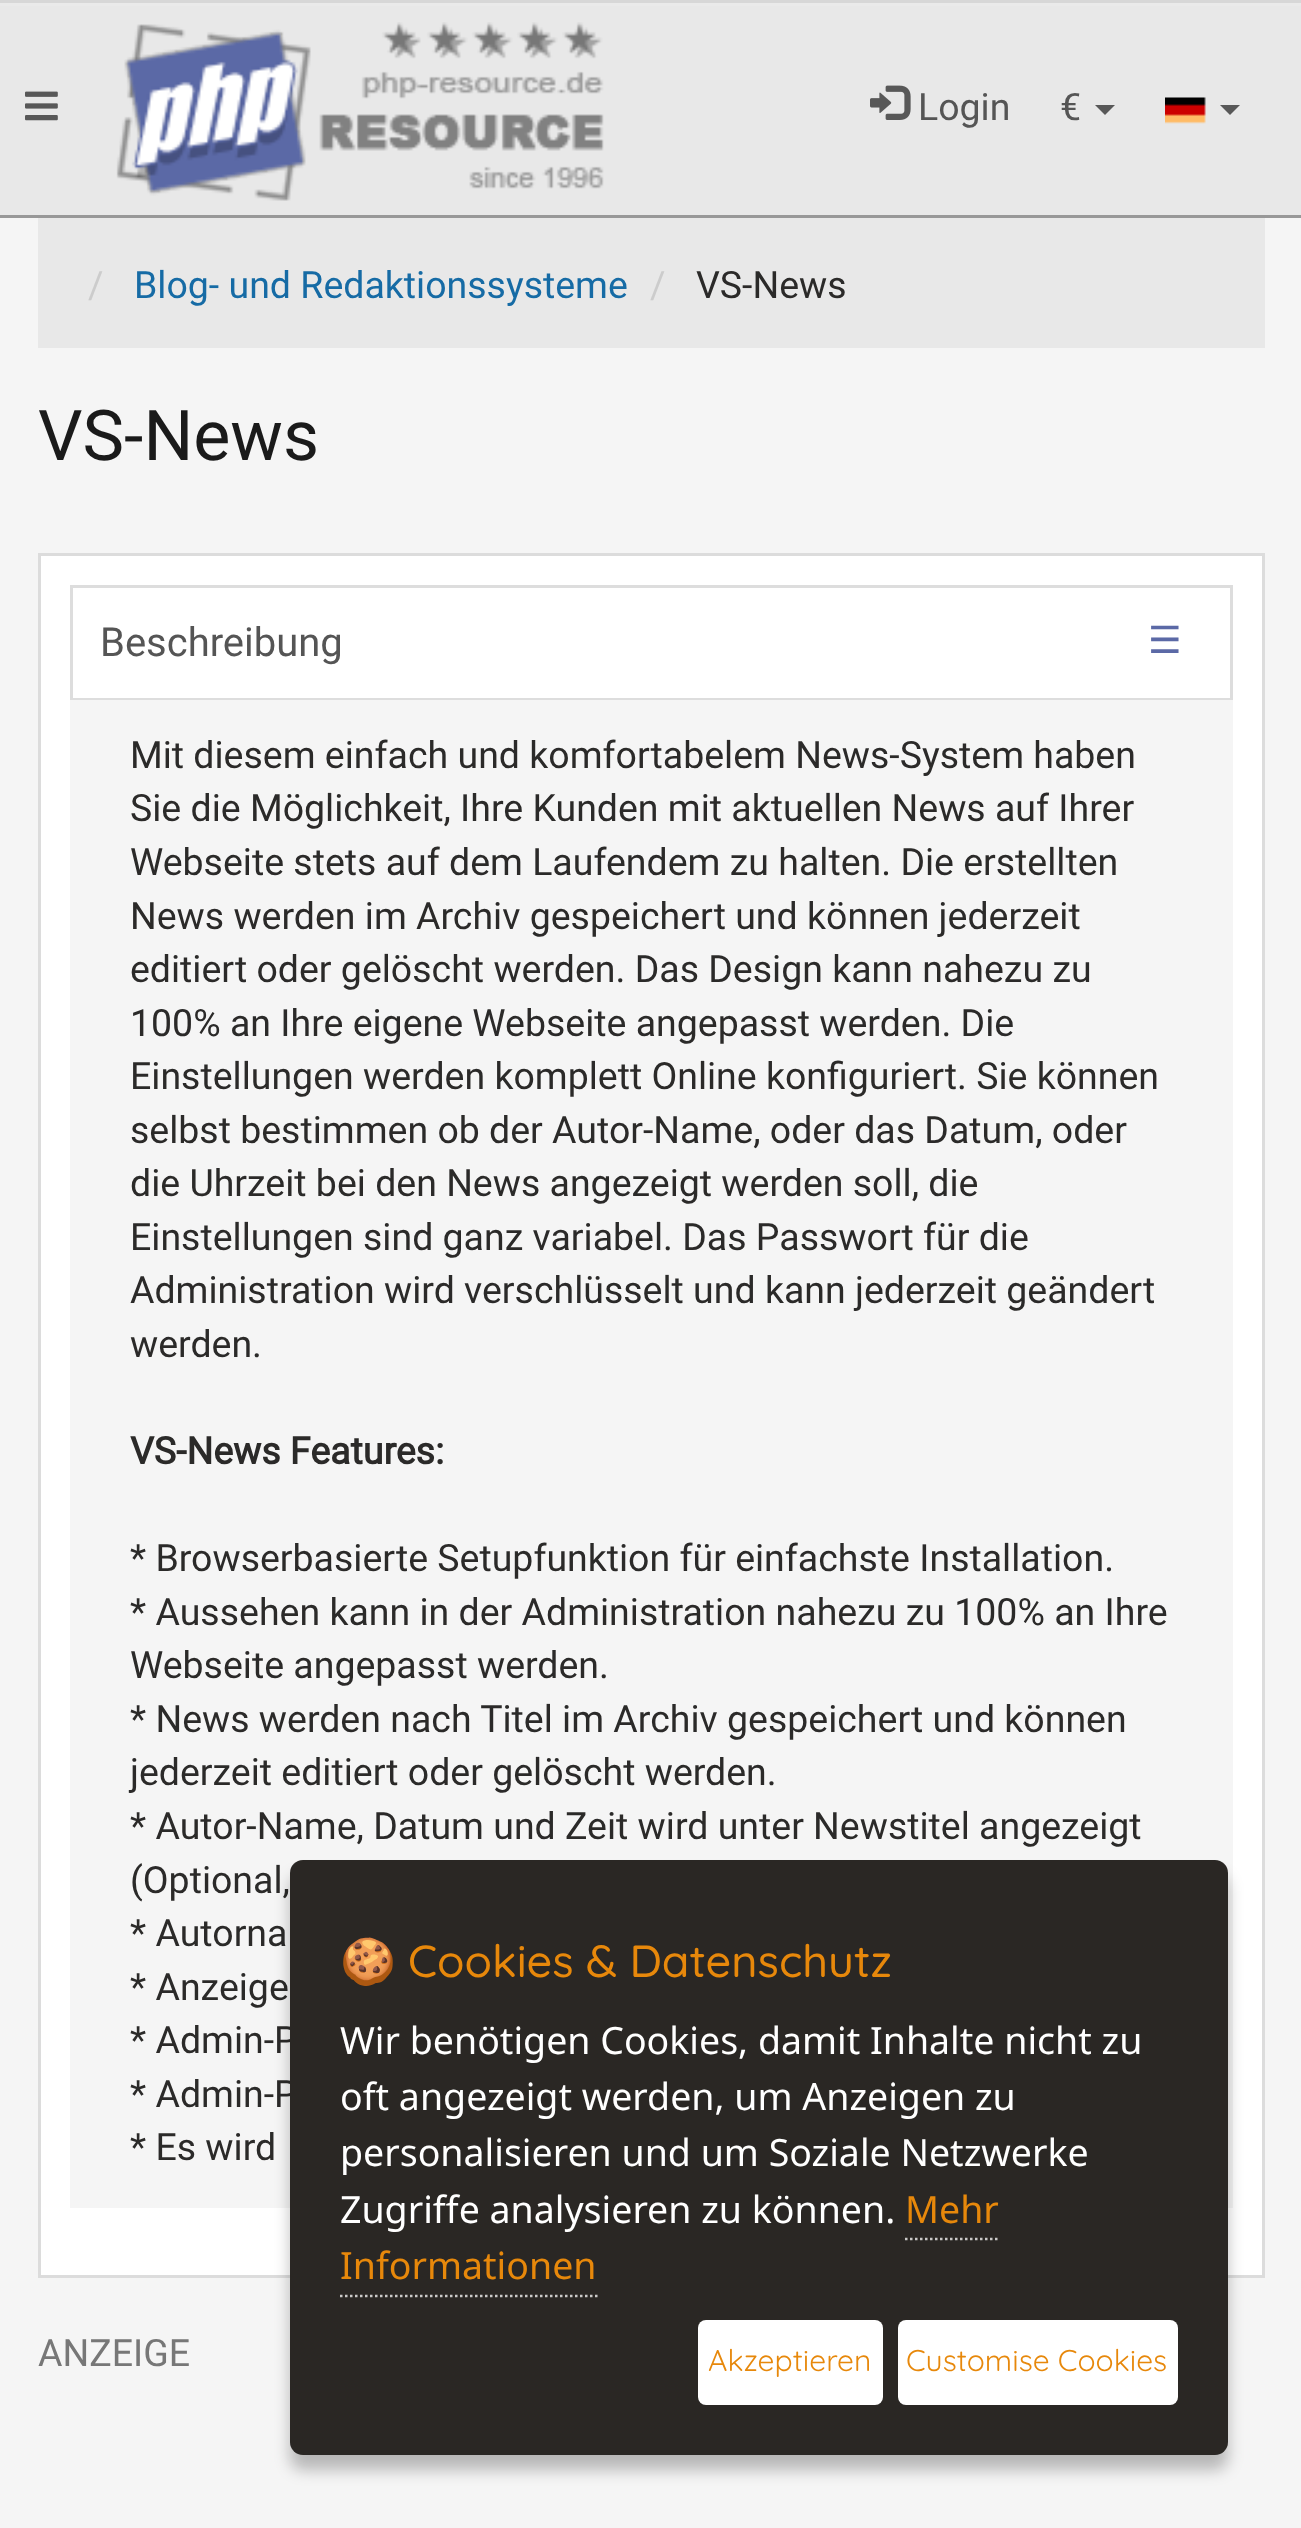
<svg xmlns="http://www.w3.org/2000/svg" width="1301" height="2528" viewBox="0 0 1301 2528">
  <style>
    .t1 { font: 37.5px Roboto; fill: #555; }
    .t2 { font: 37.5px Roboto; fill: #ccc; }
    .t3 { font: 37.5px Roboto; fill: #166ba5; }
    .t4 { font: 37.5px Roboto; fill: #2b2a29; }
    .t5 { font: 70px Roboto; fill: #1a1a1a; }
    .t6 { font: 40px Roboto; fill: #555; }
    .t7 { font: 37.5px DejaVu Sans; fill: #5b69a6; }
    .t8 { font: bold 37.5px Roboto; fill: #2b2a29; }
    .t9 { font: 37.5px Roboto; fill: #777; }
    .t10 { font: 45px Noto Color Emoji; fill: #e7880b; }
    .t11 { font: 500 45px Quicksand; fill: #e7880b; }
    .t12 { font: 37.5px Noto Sans; fill: #fff; }
    .t13 { font: 37.5px Noto Sans; fill: #e7880b; }
    .t14 { font: 30px Quicksand; fill: #e7880b; }
  </style>
  <rect width="100%" height="100%" fill="#f5f5f5"/>
  <rect x="0" y="6" width="1301" height="209" fill="#e8e8e8"/>
  <rect x="0" y="215" width="1301" height="3" fill="#989898"/>
  <rect x="0" y="3" width="1301" height="3" fill="#eaeaea"/>
  <rect x="0" y="0" width="1301" height="3" fill="#d7d7d7"/>
  <image x="25" y="91" width="33" height="30" href="images/1.png"/>
  <image x="116" y="22" width="488" height="179" href="images/2.png"/>
  <image x="870" y="85" width="41" height="35" href="images/3.png"/>
  <text x="918" y="120" class="t1">Login</text>
  <text x="1060" y="120" class="t1">€</text>
  <path d="M1095 105H1115L1105 115Z" fill="#585858"/>
  <image x="1165" y="97" width="41" height="27" href="images/4.png"/>
  <path d="M1220 105H1240L1230 115Z" fill="#585858"/>
  <rect x="38" y="218" width="1227" height="130" fill="#e8e8e8"/>
  <text x="88" y="298" class="t2">/</text>
  <text x="134" y="298" class="t3">Blog- und Redaktionssysteme</text>
  <text x="650" y="298" class="t2">/</text>
  <text x="696" y="298" class="t4">VS-News</text>
  <text x="38" y="460" class="t5">VS-News</text>
  <rect x="39.5" y="554.5" width="1224" height="1722" fill="#fff" stroke="#dcdcdc" stroke-width="3"/>
  <rect x="71.5" y="586.5" width="1160" height="112" fill="none" stroke="#ddd" stroke-width="3"/>
  <rect x="73" y="697" width="1157" height="1" fill="#fff"/>
  <text x="100" y="656" class="t6">Beschreibung</text>
  <text x="1148" y="653" class="t7">☰</text>
  <rect x="70" y="700" width="1163" height="1508" fill="#f5f5f5"/>
  <text x="130" y="768" class="t4">Mit diesem einfach und komfortabelem News-System haben</text>
  <text x="130" y="821" class="t4">Sie die Möglichkeit, Ihre Kunden mit aktuellen News auf Ihrer</text>
  <text x="130" y="875" class="t4">Webseite stets auf dem Laufendem zu halten. Die erstellten</text>
  <text x="130" y="929" class="t4">News werden im Archiv gespeichert und können jederzeit</text>
  <text x="130" y="982" class="t4">editiert oder gelöscht werden. Das Design kann nahezu zu</text>
  <text x="130" y="1036" class="t4">100% an Ihre eigene Webseite angepasst werden. Die</text>
  <text x="130" y="1089" class="t4">Einstellungen werden komplett Online konfiguriert. Sie können</text>
  <text x="130" y="1143" class="t4">selbst bestimmen ob der Autor-Name, oder das Datum, oder</text>
  <text x="130" y="1196" class="t4">die Uhrzeit bei den News angezeigt werden soll, die</text>
  <text x="130" y="1250" class="t4">Einstellungen sind ganz variabel. Das Passwort für die</text>
  <text x="130" y="1303" class="t4">Administration wird verschlüsselt und kann jederzeit geändert</text>
  <text x="130" y="1357" class="t4">werden.</text>
  <text x="130" y="1464" class="t8">VS-News Features:</text>
  <text x="130" y="1571" class="t4">* Browserbasierte Setupfunktion für einfachste Installation.</text>
  <text x="130" y="1625" class="t4">* Aussehen kann in der Administration nahezu zu 100% an Ihre</text>
  <text x="130" y="1678" class="t4">Webseite angepasst werden.</text>
  <text x="130" y="1732" class="t4">* News werden nach Titel im Archiv gespeichert und können</text>
  <text x="130" y="1785" class="t4">jederzeit editiert oder gelöscht werden.</text>
  <text x="130" y="1839" class="t4">* Autor-Name, Datum und Zeit wird unter Newstitel angezeigt</text>
  <text x="130" y="1893" class="t4">(Optional,</text>
  <text x="130" y="1946" class="t4">* Autorna</text>
  <text x="130" y="2000" class="t4">* Anzeige</text>
  <text x="130" y="2053" class="t4">* Admin-P</text>
  <text x="130" y="2107" class="t4">* Admin-P</text>
  <text x="130" y="2160" class="t4">* Es wird</text>
  <text x="38" y="2366" class="t9">ANZEIGE</text>
  <rect x="290" y="1875" width="938" height="595" rx="13" fill="#00000040" filter="blur(7.5px)"/>
  <rect x="290" y="1860" width="938" height="595" rx="13" fill="#2a2724"/>
  <text x="340" y="1977" class="t10">🍪</text>
  <text x="408" y="1977" class="t11">Cookies &amp; Datenschutz</text>
  <text x="340" y="2054" class="t12">Wir benötigen Cookies, damit Inhalte nicht zu</text>
  <text x="340" y="2110" class="t12">oft angezeigt werden, um Anzeigen zu</text>
  <text x="340" y="2166" class="t12">personalisieren und um Soziale Netzwerke</text>
  <text x="340" y="2223" class="t12">Zugriffe analysieren zu können.</text>
  <text x="905" y="2223" class="t13">Mehr</text>
  <path d="M905 2239H1000" fill="none" stroke="#cac9c8" stroke-width="2.5" stroke-dasharray="2.5 2.5"/>
  <text x="340" y="2279" class="t13">Informationen</text>
  <path d="M340 2296H597.5" fill="none" stroke="#cac9c8" stroke-width="2.5" stroke-dasharray="2.5 2.5"/>
  <rect x="698" y="2320" width="185" height="85" rx="8" fill="#fff"/>
  <text x="708" y="2371" class="t14">Akzeptieren</text>
  <rect x="898" y="2320" width="280" height="85" rx="8" fill="#fff"/>
  <text x="906" y="2371" class="t14">Customise Cookies</text>
</svg>
